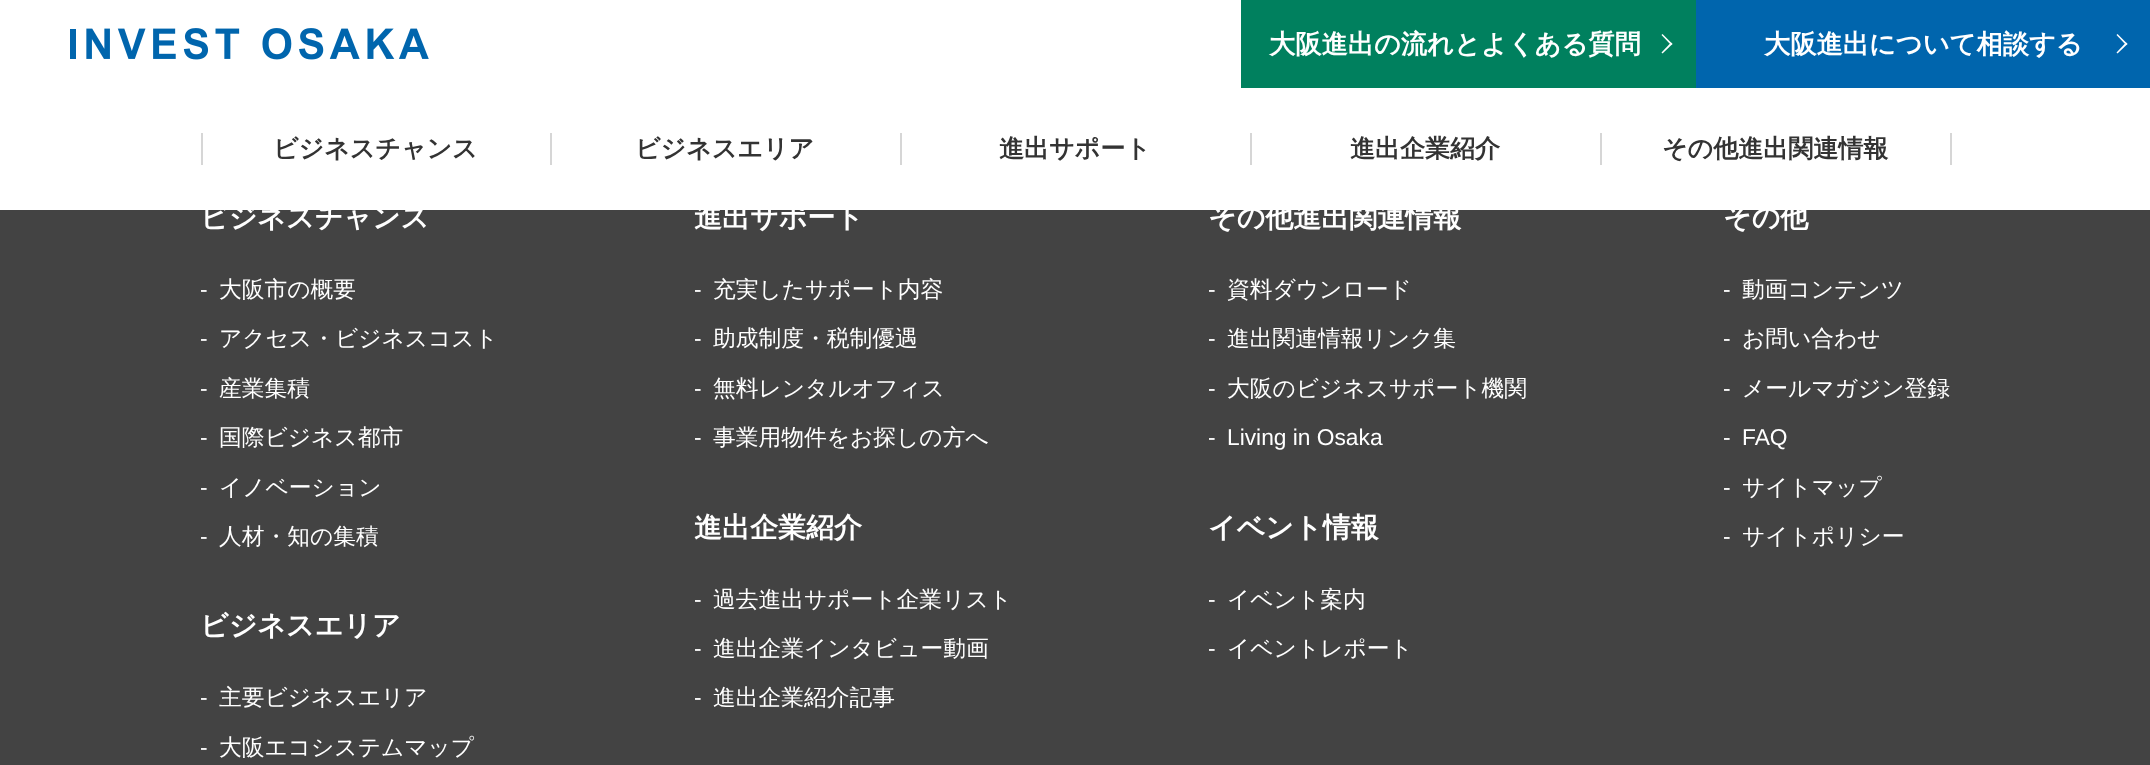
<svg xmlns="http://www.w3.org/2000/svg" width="2150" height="765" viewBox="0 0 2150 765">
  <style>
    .t1 { font: bold 26.25px WenQuanYi Zen Hei; fill: #fff; }
    .t2 { font: bold 25px WenQuanYi Zen Hei; fill: #333; }
    .t3 { font: bold 28px WenQuanYi Zen Hei; fill: #fff; }
    .t4 { font: 22.75px Liberation Sans; fill: #fff; }
    .t5 { font: 500 22.75px WenQuanYi Zen Hei; fill: #fff; }
  </style>
  <rect width="100%" height="100%" fill="#434343"/>
  <rect x="0" y="0" width="2150" height="210" fill="#fff"/>
  <image x="70" y="28" width="359" height="32" href="images/1.png"/>
  <rect x="1241" y="0" width="455" height="88" fill="#00805e"/>
  <text x="1269" y="53" class="t1">大阪進出の流れとよくある質問</text>
  <path d="M1662.5 34L1672.5 44L1671 45L1661.5 35Z" fill="#fff"/>
  <path d="M1671 42.5L1672.5 44L1662.5 53.5L1661.5 52.5Z" fill="#fff"/>
  <rect x="1696" y="0" width="454" height="88" fill="#0065ad"/>
  <text x="1764" y="53" class="t1">大阪進出について相談する</text>
  <path d="M2117.5 34L2127.5 44L2126 45L2116.5 35Z" fill="#fff"/>
  <path d="M2126 42.5L2127.5 44L2117.5 53.5L2116.5 52.5Z" fill="#fff"/>
  <rect x="550" y="133" width="2" height="32" fill="#d6d6d6"/>
  <rect x="201" y="133" width="2" height="32" fill="#d6d6d6"/>
  <text x="273" y="157" class="t2">ビジネスチャンス</text>
  <rect x="900" y="133" width="2" height="32" fill="#d6d6d6"/>
  <text x="635" y="157" class="t2">ビジネスエリア</text>
  <rect x="1250" y="133" width="2" height="32" fill="#d6d6d6"/>
  <text x="999" y="157" class="t2">進出サポート</text>
  <rect x="1600" y="133" width="2" height="32" fill="#d6d6d6"/>
  <text x="1350" y="157" class="t2">進出企業紹介</text>
  <rect x="1950" y="133" width="2" height="32" fill="#d6d6d6"/>
  <text x="1662" y="157" class="t2">その他進出関連情報</text>
  <text x="200" y="227" class="t3">ビジネスチャンス</text>
  <text x="200" y="297" class="t4">-</text>
  <text x="219" y="297" class="t5">大阪市の概要</text>
  <text x="200" y="346" class="t4">-</text>
  <text x="219" y="346" class="t5">アクセス・ビジネスコスト</text>
  <text x="200" y="396" class="t4">-</text>
  <text x="219" y="396" class="t5">産業集積</text>
  <text x="200" y="445" class="t4">-</text>
  <text x="219" y="445" class="t5">国際ビジネス都市</text>
  <text x="200" y="495" class="t4">-</text>
  <text x="219" y="495" class="t5">イノベーション</text>
  <text x="200" y="544" class="t4">-</text>
  <text x="219" y="544" class="t5">人材・知の集積</text>
  <text x="200" y="635" class="t3">ビジネスエリア</text>
  <text x="200" y="705" class="t4">-</text>
  <text x="219" y="705" class="t5">主要ビジネスエリア</text>
  <text x="200" y="755" class="t4">-</text>
  <text x="219" y="755" class="t5">大阪エコシステムマップ</text>
  <text x="694" y="227" class="t3">進出サポート</text>
  <text x="694" y="297" class="t4">-</text>
  <text x="713" y="297" class="t5">充実したサポート内容</text>
  <text x="694" y="346" class="t4">-</text>
  <text x="713" y="346" class="t5">助成制度・税制優遇</text>
  <text x="694" y="396" class="t4">-</text>
  <text x="713" y="396" class="t5">無料レンタルオフィス</text>
  <text x="694" y="445" class="t4">-</text>
  <text x="713" y="445" class="t5">事業用物件をお探しの方へ</text>
  <text x="694" y="537" class="t3">進出企業紹介</text>
  <text x="694" y="607" class="t4">-</text>
  <text x="713" y="607" class="t5">過去進出サポート企業リスト</text>
  <text x="694" y="656" class="t4">-</text>
  <text x="713" y="656" class="t5">進出企業インタビュー動画</text>
  <text x="694" y="705" class="t4">-</text>
  <text x="713" y="705" class="t5">進出企業紹介記事</text>
  <text x="1208" y="227" class="t3">その他進出関連情報</text>
  <text x="1208" y="297" class="t4">-</text>
  <text x="1227" y="297" class="t5">資料ダウンロード</text>
  <text x="1208" y="346" class="t4">-</text>
  <text x="1227" y="346" class="t5">進出関連情報リンク集</text>
  <text x="1208" y="396" class="t4">-</text>
  <text x="1227" y="396" class="t5">大阪のビジネスサポート機関</text>
  <text x="1208" y="445" class="t4">-</text>
  <text x="1227" y="445" class="t4">Living in Osaka</text>
  <text x="1208" y="537" class="t3">イベント情報</text>
  <text x="1208" y="607" class="t4">-</text>
  <text x="1227" y="607" class="t5">イベント案内</text>
  <text x="1208" y="656" class="t4">-</text>
  <text x="1227" y="656" class="t5">イベントレポート</text>
  <text x="1723" y="227" class="t3">その他</text>
  <text x="1723" y="297" class="t4">-</text>
  <text x="1742" y="297" class="t5">動画コンテンツ</text>
  <text x="1723" y="346" class="t4">-</text>
  <text x="1742" y="346" class="t5">お問い合わせ</text>
  <text x="1723" y="396" class="t4">-</text>
  <text x="1742" y="396" class="t5">メールマガジン登録</text>
  <text x="1723" y="445" class="t4">-</text>
  <text x="1742" y="445" class="t4">FAQ</text>
  <text x="1723" y="495" class="t4">-</text>
  <text x="1742" y="495" class="t5">サイトマップ</text>
  <text x="1723" y="544" class="t4">-</text>
  <text x="1742" y="544" class="t5">サイトポリシー</text>
</svg>
